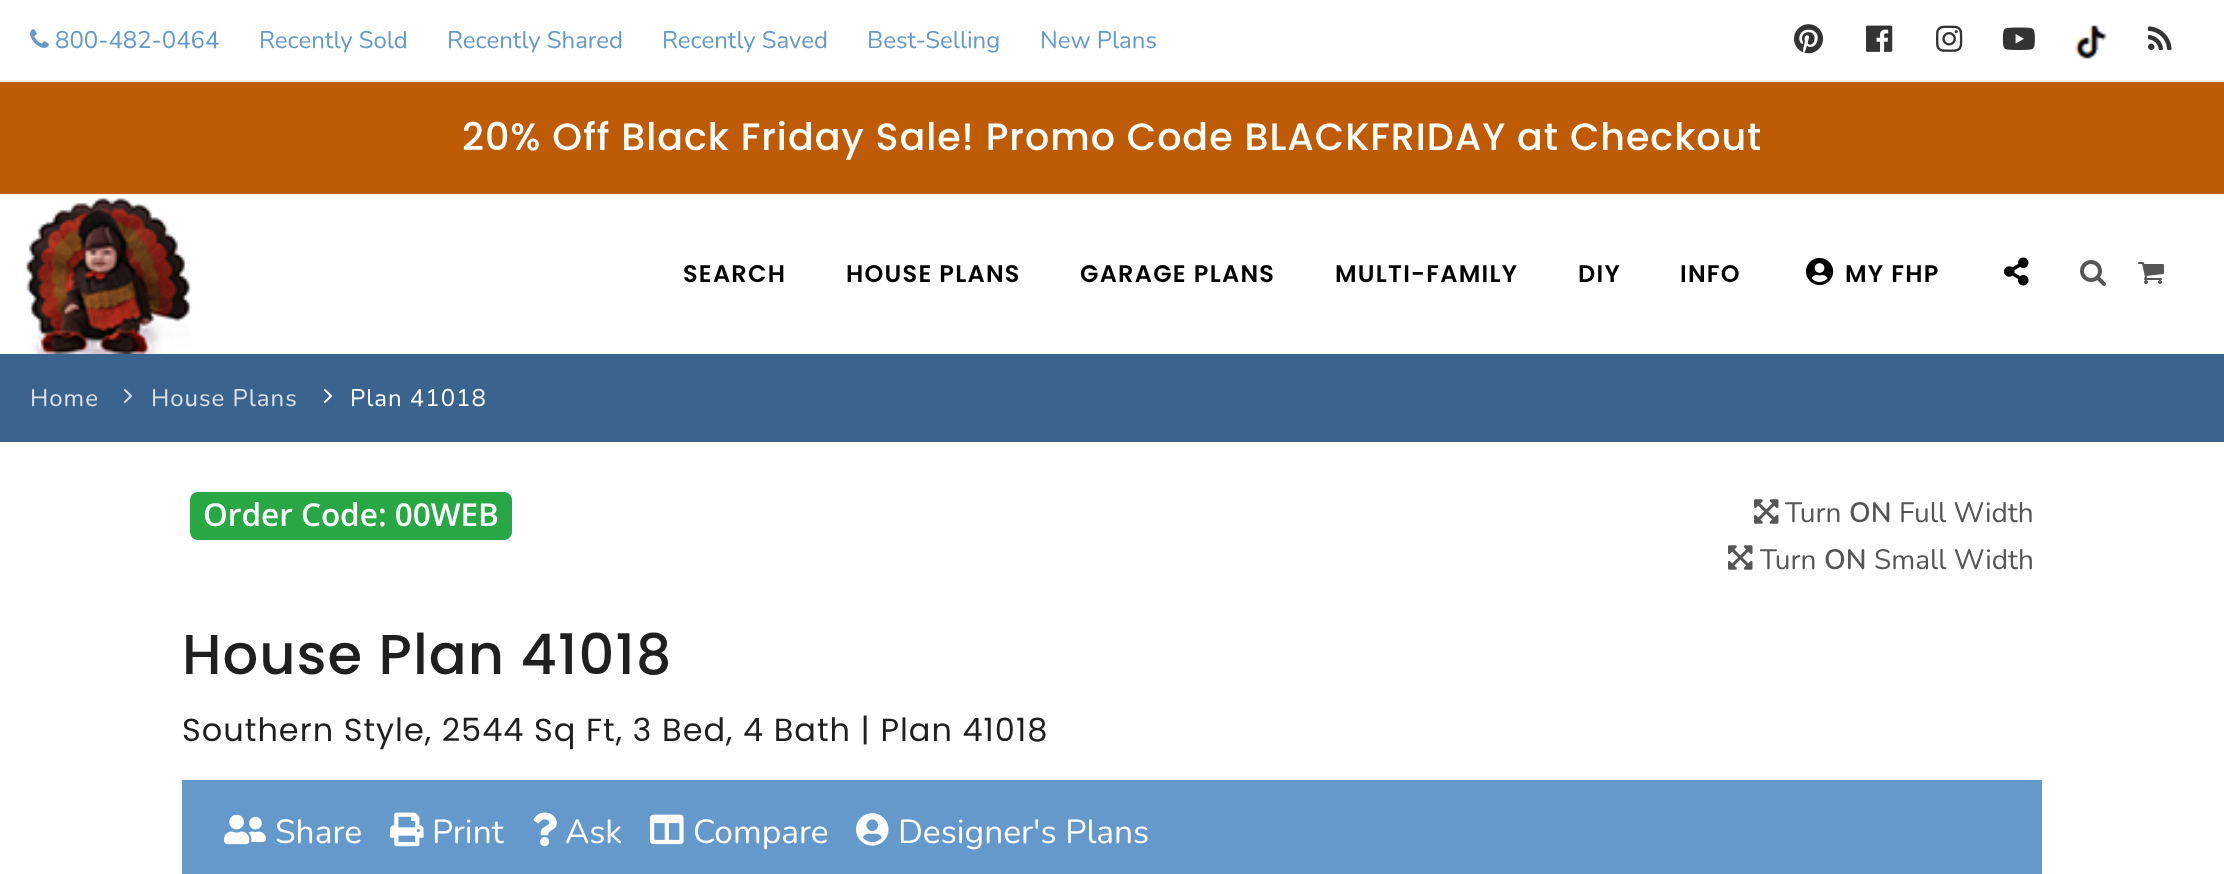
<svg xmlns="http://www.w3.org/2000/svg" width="2224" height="874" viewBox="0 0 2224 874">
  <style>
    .t1 { font: 24px Nunito; fill: #6599cb; }
    .t2 { font: 500 38px Poppins; letter-spacing: 1px; fill: #fff; }
    .t3 { font: 600 24px Poppins; letter-spacing: 1.25px; fill: #000; }
    .t4 { font: 24px Nunito; letter-spacing: 1px; fill: #d8e0e8; }
    .t5 { font: 24px Nunito; letter-spacing: 1px; fill: #fff; }
    .t6 { font: 600 31.5px Open Sans; fill: #fff; }
    .t7 { font: 28px Nunito; fill: #565656; }
    .t8 { font: 600 28px Nunito; fill: #565656; }
    .t9 { font: 500 56px Poppins; letter-spacing: 1px; fill: #1f1f1f; }
    .t10 { font: 32px Poppins; letter-spacing: 1px; fill: #1f1f1f; }
    .t11 { font: 33.5px Nunito; fill: #fff; }
  </style>
  <rect width="100%" height="100%" fill="#fff"/>
  <rect x="0" y="80" width="2224" height="2" fill="#eee"/>
  <image x="30" y="29" width="19" height="19" href="images/1.png"/>
  <text x="55" y="48" class="t1">800-482-0464</text>
  <text x="259" y="48" class="t1">Recently Sold</text>
  <text x="447" y="48" class="t1">Recently Shared</text>
  <text x="662" y="48" class="t1">Recently Saved</text>
  <text x="867" y="48" class="t1">Best-Selling</text>
  <text x="1040" y="48" class="t1">New Plans</text>
  <image x="1794" y="24" width="30" height="30" href="images/2.png"/>
  <image x="1866" y="25" width="27" height="27" href="images/3.png"/>
  <image x="1936" y="25" width="27" height="27" href="images/4.png"/>
  <image x="2002" y="27" width="33" height="23" href="images/5.png"/>
  <image x="2075" y="25" width="32" height="34" href="images/6.png"/>
  <image x="2148" y="26" width="24" height="24" href="images/7.png"/>
  <rect x="0" y="82" width="2224" height="112" fill="#bf5b05"/>
  <text x="462" y="150" class="t2">20% Off Black Friday Sale! Promo Code BLACKFRIDAY at Checkout</text>
  <image x="26" y="198" width="166" height="156" href="images/8.png"/>
  <text x="683" y="282" class="t3">SEARCH</text>
  <text x="846" y="282" class="t3">HOUSE PLANS</text>
  <text x="1080" y="282" class="t3">GARAGE PLANS</text>
  <text x="1335" y="282" class="t3">MULTI-FAMILY</text>
  <text x="1578" y="282" class="t3">DIY</text>
  <text x="1680" y="282" class="t3">INFO</text>
  <image x="1806" y="257" width="28" height="29" href="images/9.png"/>
  <text x="1845" y="282" class="t3">MY FHP</text>
  <image x="2004" y="257" width="25" height="29" href="images/10.png"/>
  <image x="2080" y="260" width="26" height="26" href="images/11.png"/>
  <image x="2138" y="262" width="26" height="22" href="images/12.png"/>
  <rect x="0" y="354" width="2224" height="88" fill="#3a638e"/>
  <text x="30" y="406" class="t4">Home</text>
  <image x="124" y="389" width="8" height="14" href="images/13.png"/>
  <text x="151" y="406" class="t4">House Plans</text>
  <image x="324" y="389" width="8" height="14" href="images/14.png"/>
  <text x="350" y="406" class="t5">Plan 41018</text>
  <rect x="190" y="492" width="322" height="48" rx="8" fill="#28a745"/>
  <text x="203" y="526" class="t6">Order Code: 00WEB</text>
  <image x="1754" y="499" width="25" height="25" href="images/15.png"/>
  <text x="1785" y="522" class="t7">Turn</text>
  <text x="1849" y="522" class="t8">ON</text>
  <text x="1899" y="522" class="t7">Full Width</text>
  <image x="1728" y="545" width="25" height="25" href="images/15.png"/>
  <text x="1760" y="569" class="t7">Turn</text>
  <text x="1824" y="569" class="t8">ON</text>
  <text x="1874" y="569" class="t7">Small Width</text>
  <text x="182" y="674" class="t9">House Plan 41018</text>
  <text x="182" y="741" class="t10">Southern Style, 2544 Sq Ft, 3 Bed, 4 Bath | Plan 41018</text>
  <rect x="182" y="780" width="1860" height="94" fill="#6599cb"/>
  <image x="224" y="814" width="42" height="31" href="images/16.png"/>
  <text x="275" y="843" class="t11">Share</text>
  <image x="390" y="812" width="34" height="35" href="images/17.png"/>
  <text x="432" y="843" class="t11">Print</text>
  <image x="533" y="812" width="24" height="35" href="images/18.png"/>
  <text x="565" y="843" class="t11">Ask</text>
  <image x="650" y="814" width="34" height="31" href="images/19.png"/>
  <text x="693" y="843" class="t11">Compare</text>
  <image x="856" y="813" width="33" height="33" href="images/20.png"/>
  <text x="898" y="843" class="t11">Designer's Plans</text>
</svg>
